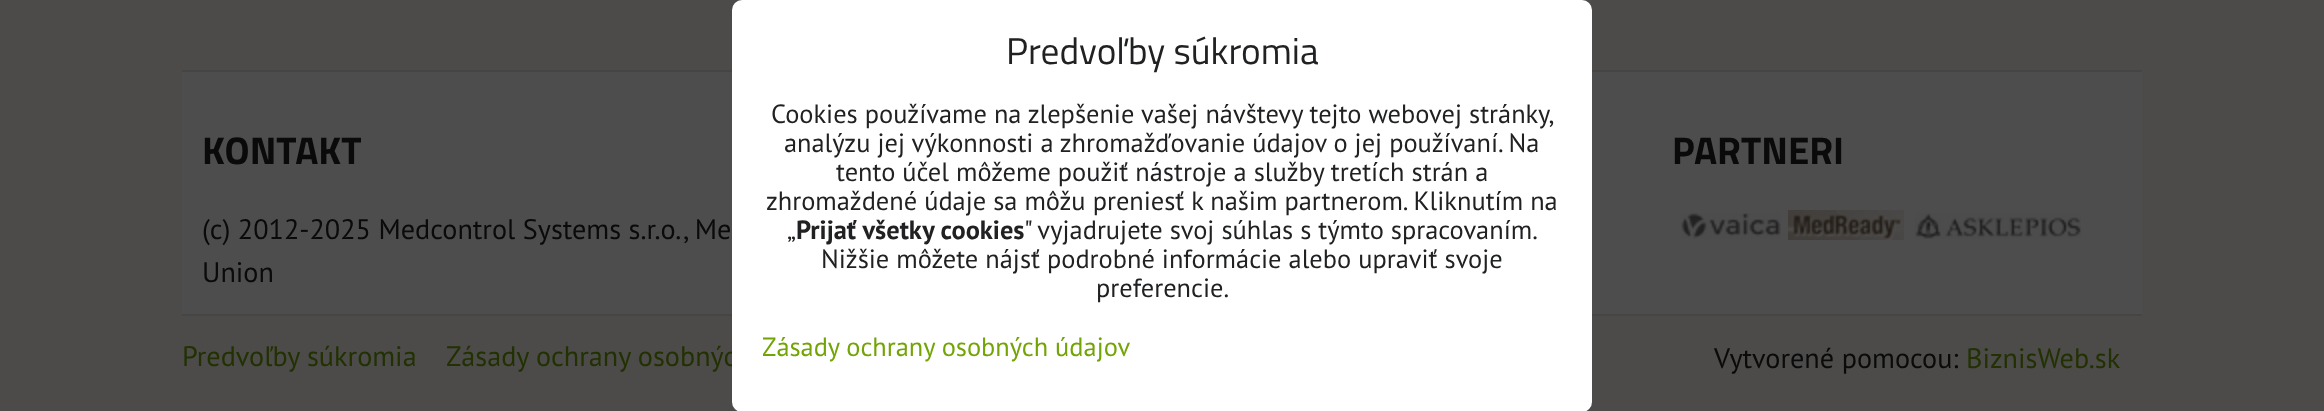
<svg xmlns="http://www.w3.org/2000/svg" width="2324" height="411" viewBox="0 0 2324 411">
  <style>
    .t1 { font: 28.2px PT Sans; fill: #223102; }
    .t2 { font: 37.25px Titillium Web; fill: #202123; }
    .t3 { font: 26.4px PT Sans; fill: #202123; }
    .t4 { font: bold 26.4px PT Sans; fill: #202123; }
    .t5 { font: 26.4px PT Sans; fill: #72a405; }
    .t6 { font: bold 38.5px Titillium Web; fill: #0a0a0b; }
    .t7 { font: 28.2px PT Sans; fill: #0a0a0b; }
  </style>
  <rect width="100%" height="100%" fill="#4c4b4a"/>
  <rect x="182" y="72" width="1960" height="242" fill="#4d4d4d"/>
  <rect x="182" y="70" width="1960" height="2" fill="#454545"/>
  <rect x="182" y="314" width="1960" height="2" fill="#454545"/>
  <text x="446" y="366" class="t1">Zásady ochrany osobnýc</text>
  <rect x="732" y="0" width="860" height="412" rx="10" fill="#fff"/>
  <text x="1006" y="64" class="t2">Predvoľby súkromia</text>
  <text x="771" y="123" class="t3">Cookies používame na zlepšenie vašej návštevy tejto webovej stránky,</text>
  <text x="784" y="152" class="t3">analýzu jej výkonnosti a zhromažďovanie údajov o jej používaní. Na</text>
  <text x="836" y="181" class="t3">tento účel môžeme použiť nástroje a služby tretích strán a</text>
  <text x="766" y="210" class="t3">zhromaždené údaje sa môžu preniesť k našim partnerom. Kliknutím na</text>
  <text x="787" y="239" class="t3">„</text>
  <text x="796" y="239" class="t4">Prijať všetky cookies</text>
  <text x="1024" y="239" class="t3">" vyjadrujete svoj súhlas s týmto spracovaním.</text>
  <text x="821" y="268" class="t3">Nižšie môžete nájsť podrobné informácie alebo upraviť svoje</text>
  <text x="1096" y="297" class="t3">preferencie.</text>
  <text x="762" y="356" class="t5">Zásady ochrany osobných údajov</text>
  <text x="202" y="164" class="t6">KONTAKT</text>
  <text x="202" y="239" class="t7">(c) 2012-2025 Medcontrol Systems s.r.o., Me</text>
  <text x="202" y="282" class="t7">Union</text>
  <text x="1672" y="164" class="t6">PARTNERI</text>
  <image x="1681" y="213" width="100" height="26" href="images/1.png"/>
  <image x="1788" y="210" width="116" height="30" href="images/2.png"/>
  <image x="1915" y="213" width="166" height="26" href="images/3.png"/>
  <text x="182" y="366" class="t1">Predvoľby súkromia</text>
  <text x="1714" y="368" class="t7">Vytvorené pomocou:</text>
  <text x="1966" y="368" class="t1">BiznisWeb.sk</text>
</svg>
